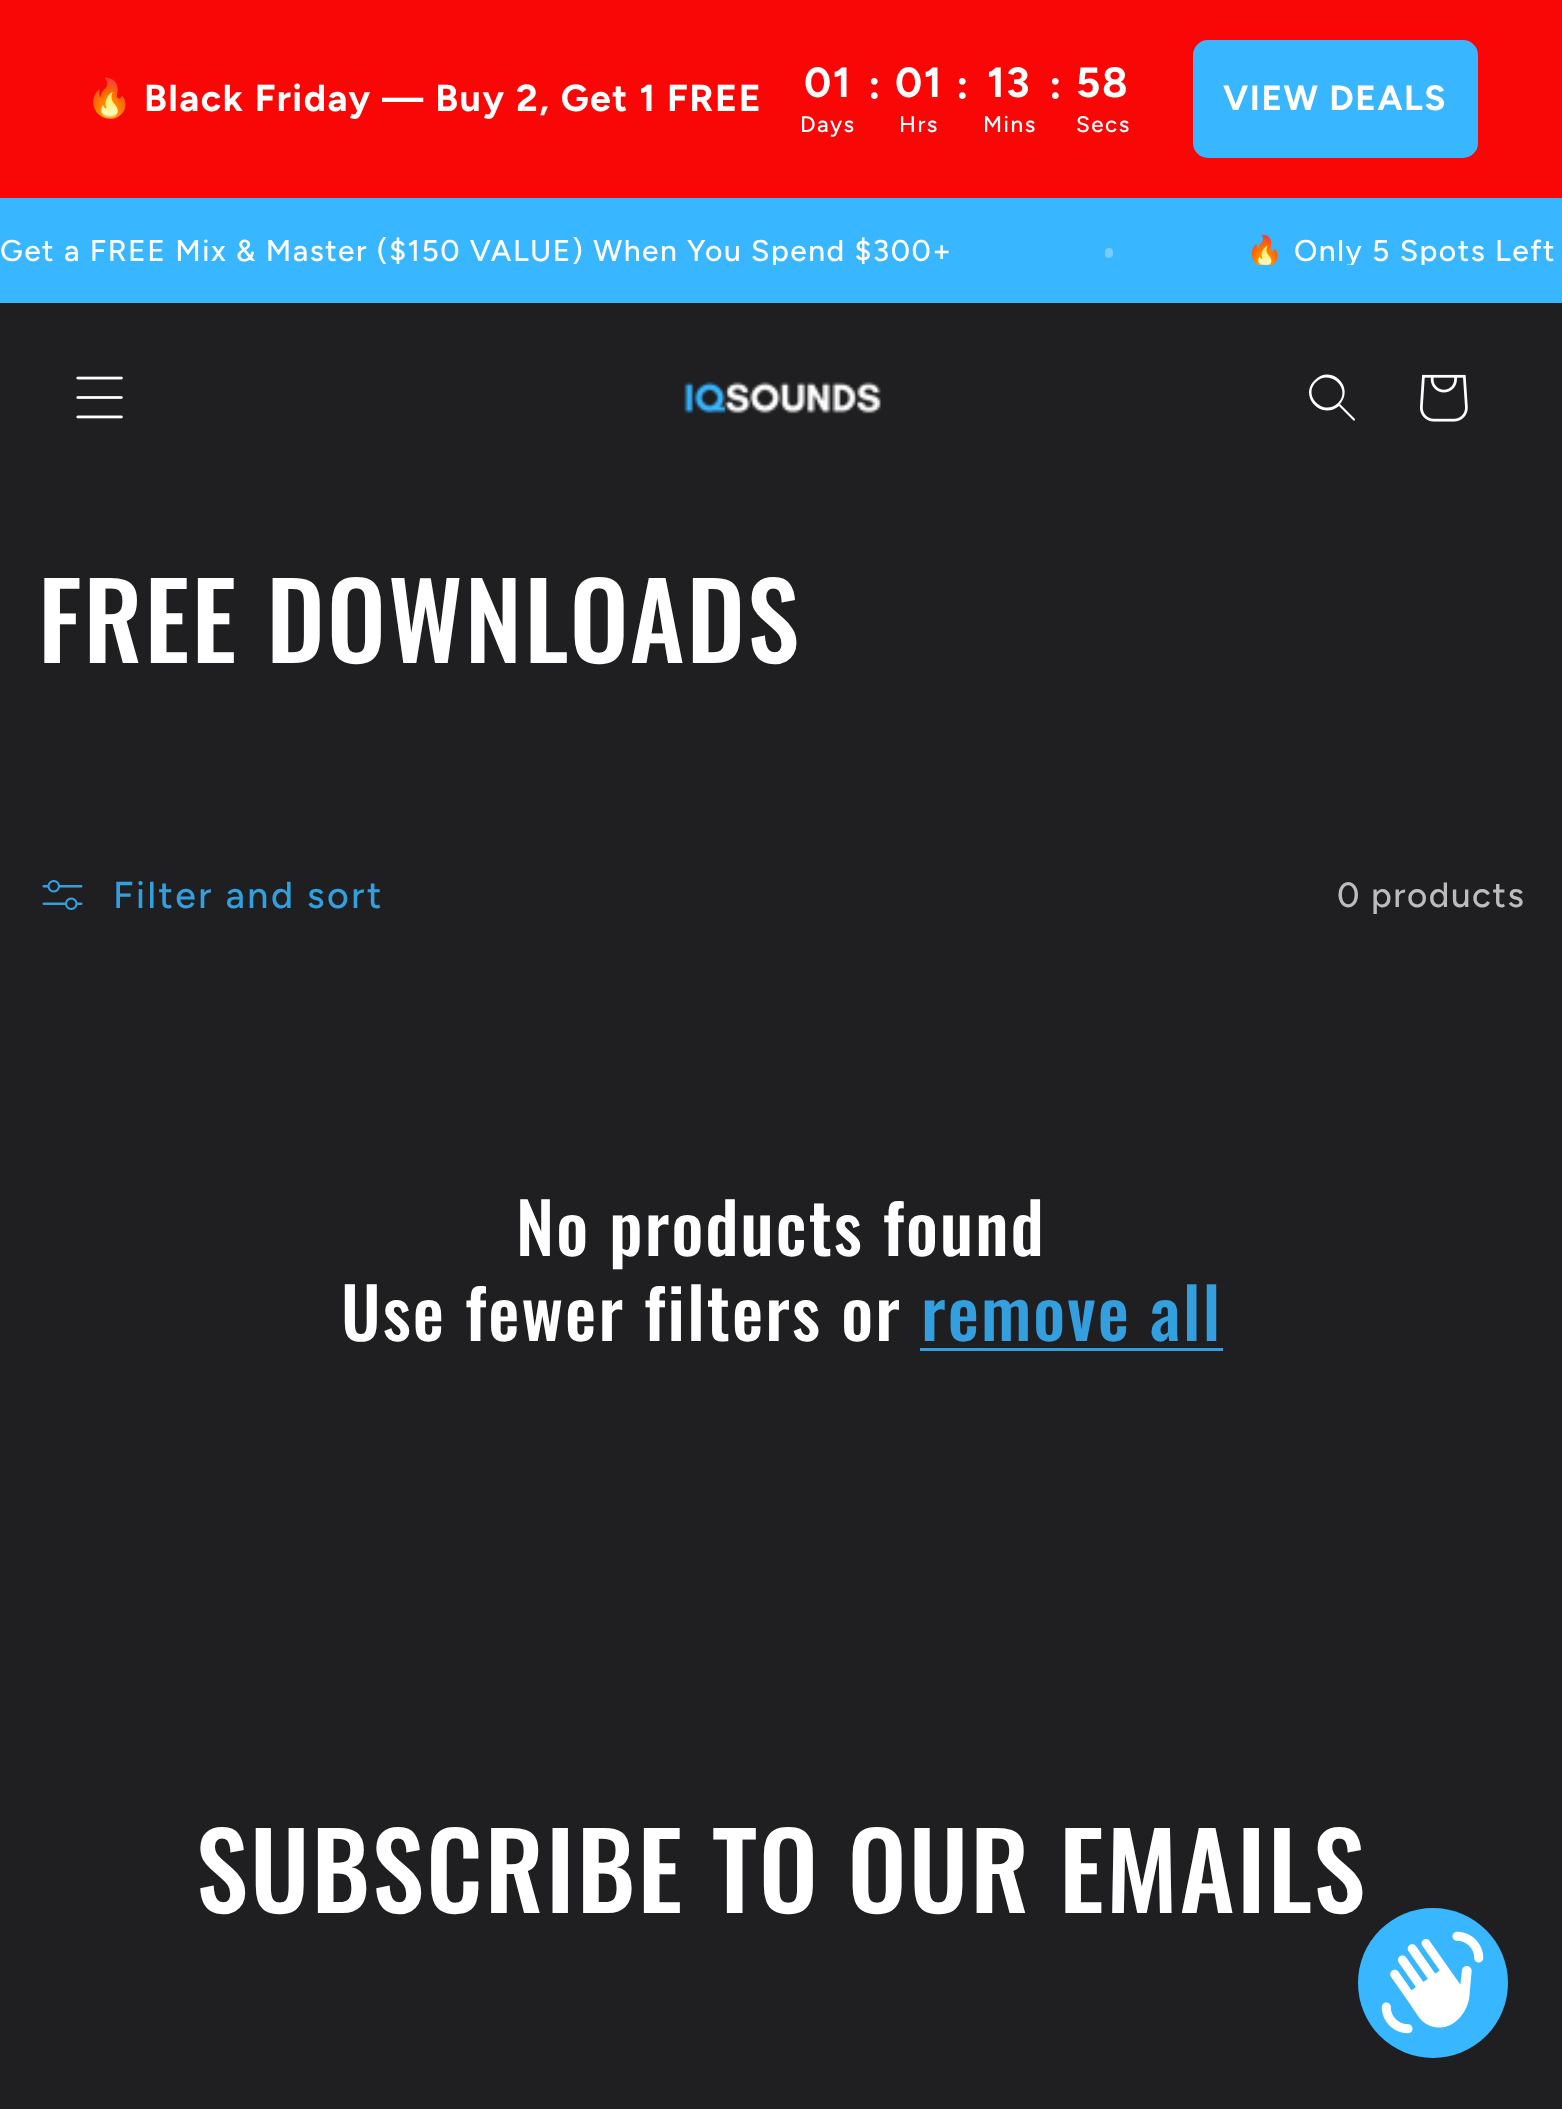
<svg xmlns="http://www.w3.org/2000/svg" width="1562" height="2109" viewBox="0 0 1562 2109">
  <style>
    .t1 { font: bold 37.5px Noto Color Emoji; letter-spacing: 1.5px; fill: #fff; }
    .t2 { font: bold 37.5px Figtree; letter-spacing: 1.5px; fill: #fff; }
    .t3 { font: bold 42px Figtree; letter-spacing: 1.5px; fill: #fff; }
    .t4 { font: 500 22.5px Figtree; letter-spacing: 1.5px; fill: #fff; }
    .t5 { font: bold 35px Figtree; letter-spacing: 1.5px; fill: #fff; }
    .t6 { font: 500 30px Figtree; letter-spacing: 1.5px; fill: #fff; }
    .t7 { font: 30px Noto Color Emoji; letter-spacing: 1.5px; fill: #fff; }
    .t8 { font: 500 105px Oswald; letter-spacing: 2.1px; fill: #fff; }
    .t9 { font: 500 37.5px Figtree; letter-spacing: 2.5px; fill: #349fde; }
    .t10 { font: 500 35px Figtree; letter-spacing: 1.5px; fill: #bcbcbc; }
    .t11 { font: 500 70px Oswald; letter-spacing: 2.1px; fill: #fff; }
    .t12 { font: 500 70px Oswald; letter-spacing: 2.1px; fill: #349fde; }
  </style>
  <defs>
    <clipPath id="clip1"><rect x="0" y="235" width="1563" height="30"/></clipPath>
  </defs>
  <rect width="100%" height="100%" fill="#1f1f21"/>
  <rect x="0" y="0" width="1562" height="198" fill="#f90606"/>
  <text x="86" y="111" class="t1">🔥</text>
  <text x="144" y="111" class="t2">Black Friday — Buy 2, Get 1 FREE</text>
  <text x="804" y="97" class="t3">01</text>
  <text x="800" y="132" class="t4">Days</text>
  <text x="868" y="99" class="t3">:</text>
  <text x="895" y="97" class="t3">01</text>
  <text x="899" y="132" class="t4">Hrs</text>
  <text x="956" y="99" class="t3">:</text>
  <text x="987" y="97" class="t3">13</text>
  <text x="983" y="132" class="t4">Mins</text>
  <text x="1049" y="99" class="t3">:</text>
  <text x="1076" y="97" class="t3">58</text>
  <text x="1076" y="132" class="t4">Secs</text>
  <rect x="1193" y="40" width="285" height="118" rx="15" fill="#38b6ff"/>
  <text x="1223" y="110" class="t5">VIEW DEALS</text>
  <rect x="0" y="198" width="1562" height="105" fill="#38b6ff"/>
  <g clip-path="url(#clip1)">
    <text x="0" y="261" class="t6">Get a FREE Mix &amp; Master ($150 VALUE) When You Spend $300+</text>
  </g>
  <rect x="1105" y="248" width="8" height="10" rx="4" fill="#74ccff"/>
  <g clip-path="url(#clip1)">
    <text x="1246" y="261" class="t7">🔥</text>
    <text x="1294" y="261" class="t6">Only 5 Spots Left</text>
  </g>
  <image x="76" y="376" width="47" height="43" href="images/1.png"/>
  <image x="684" y="381" width="197" height="33" href="images/2.png"/>
  <path d="M1338 403C1324 417 1302 396 1316 382C1330 368 1352 389 1338 403M1339 406C1321 421 1298 395 1315 380C1331 364 1355 387 1340 404L1355 419C1355 421 1354 421 1353 420Z" fill="#fff" fill-rule="evenodd"/>
  <image x="1420" y="374" width="48" height="48" href="images/3.png"/>
  <text x="38" y="663" class="t8">FREE DOWNLOADS</text>
  <image x="42" y="880" width="41" height="30" href="images/4.png"/>
  <text x="113" y="908" class="t9">Filter and sort</text>
  <text x="1337" y="907" class="t10">0 products</text>
  <text x="516" y="1256" class="t11">No products found</text>
  <text x="341" y="1341" class="t11">Use fewer filters or</text>
  <text x="921" y="1341" class="t12">remove all</text>
  <rect x="920" y="1348" width="303" height="3" fill="#349fde"/>
  <text x="196" y="1913" class="t8">SUBSCRIBE TO OUR EMAILS</text>
  <circle cx="1433" cy="1983" r="75" fill="#38b6ff"/>
  <image x="1381" y="1931" width="103" height="103" href="images/5.png"/>
</svg>
